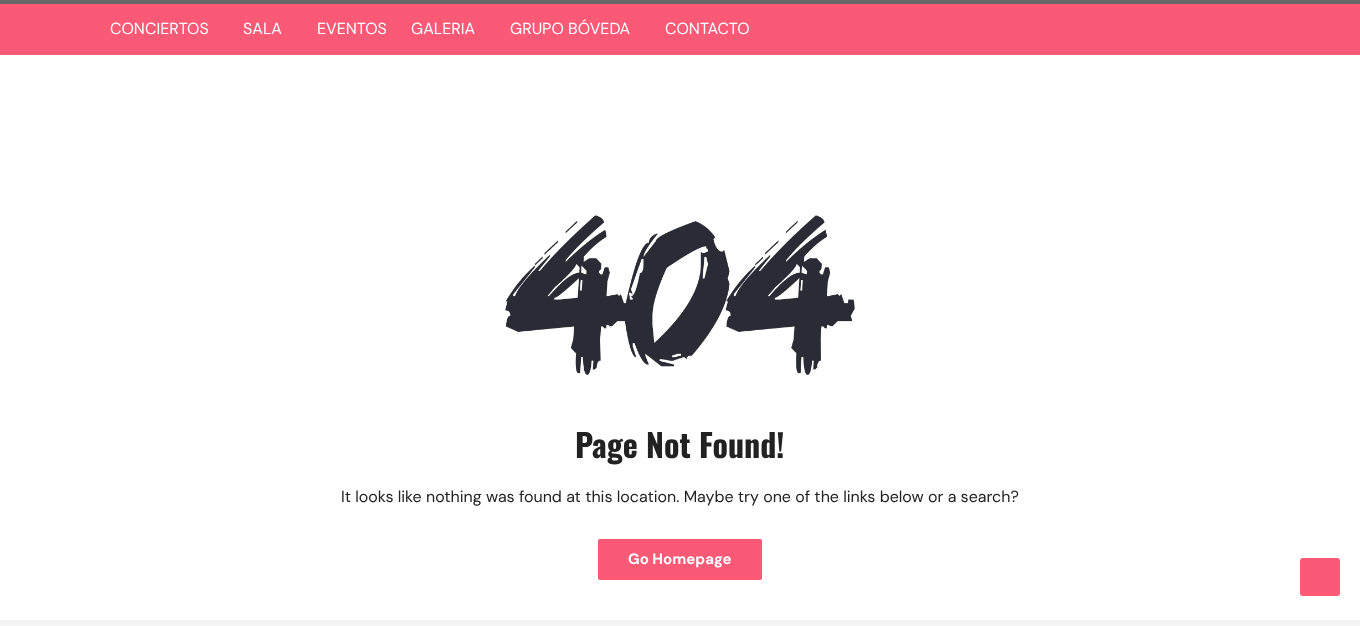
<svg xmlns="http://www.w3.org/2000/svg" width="1360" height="626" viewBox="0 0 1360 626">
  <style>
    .t1 { font: 16px DM Sans; fill: #fff; }
    .t2 { font: bold 32px Oswald; fill: #222; }
    .t3 { font: 16px DM Sans; fill: #222; }
    .t4 { font: bold 15px DM Sans; fill: #fff; }
  </style>
  <rect width="100%" height="100%" fill="#fff"/>
  <rect x="0" y="0" width="1360" height="4" fill="#666"/>
  <rect x="0" y="4" width="1360" height="51" fill="#fb5975"/>
  <text x="110" y="34" class="t1">CONCIERTOS</text>
  <text x="243" y="34" class="t1">SALA</text>
  <text x="317" y="34" class="t1">EVENTOS</text>
  <text x="411" y="34" class="t1">GALERIA</text>
  <text x="510" y="34" class="t1">GRUPO BÓVEDA</text>
  <text x="665" y="34" class="t1">CONTACTO</text>
  <image x="505" y="215" width="350" height="160" href="images/1.png"/>
  <text x="575" y="458" class="t2">Page Not Found!</text>
  <text x="341" y="502" class="t3">It looks like nothing was found at this location. Maybe try one of the links below or a search?</text>
  <rect x="598" y="539" width="164" height="41" rx="2" fill="#fb5975"/>
  <text x="628" y="564" class="t4">Go Homepage</text>
  <rect x="0" y="620" width="1360" height="6" fill="#f5f5f5"/>
  <rect x="1300" y="558" width="40" height="38" rx="3" fill="#fb5975"/>
</svg>
